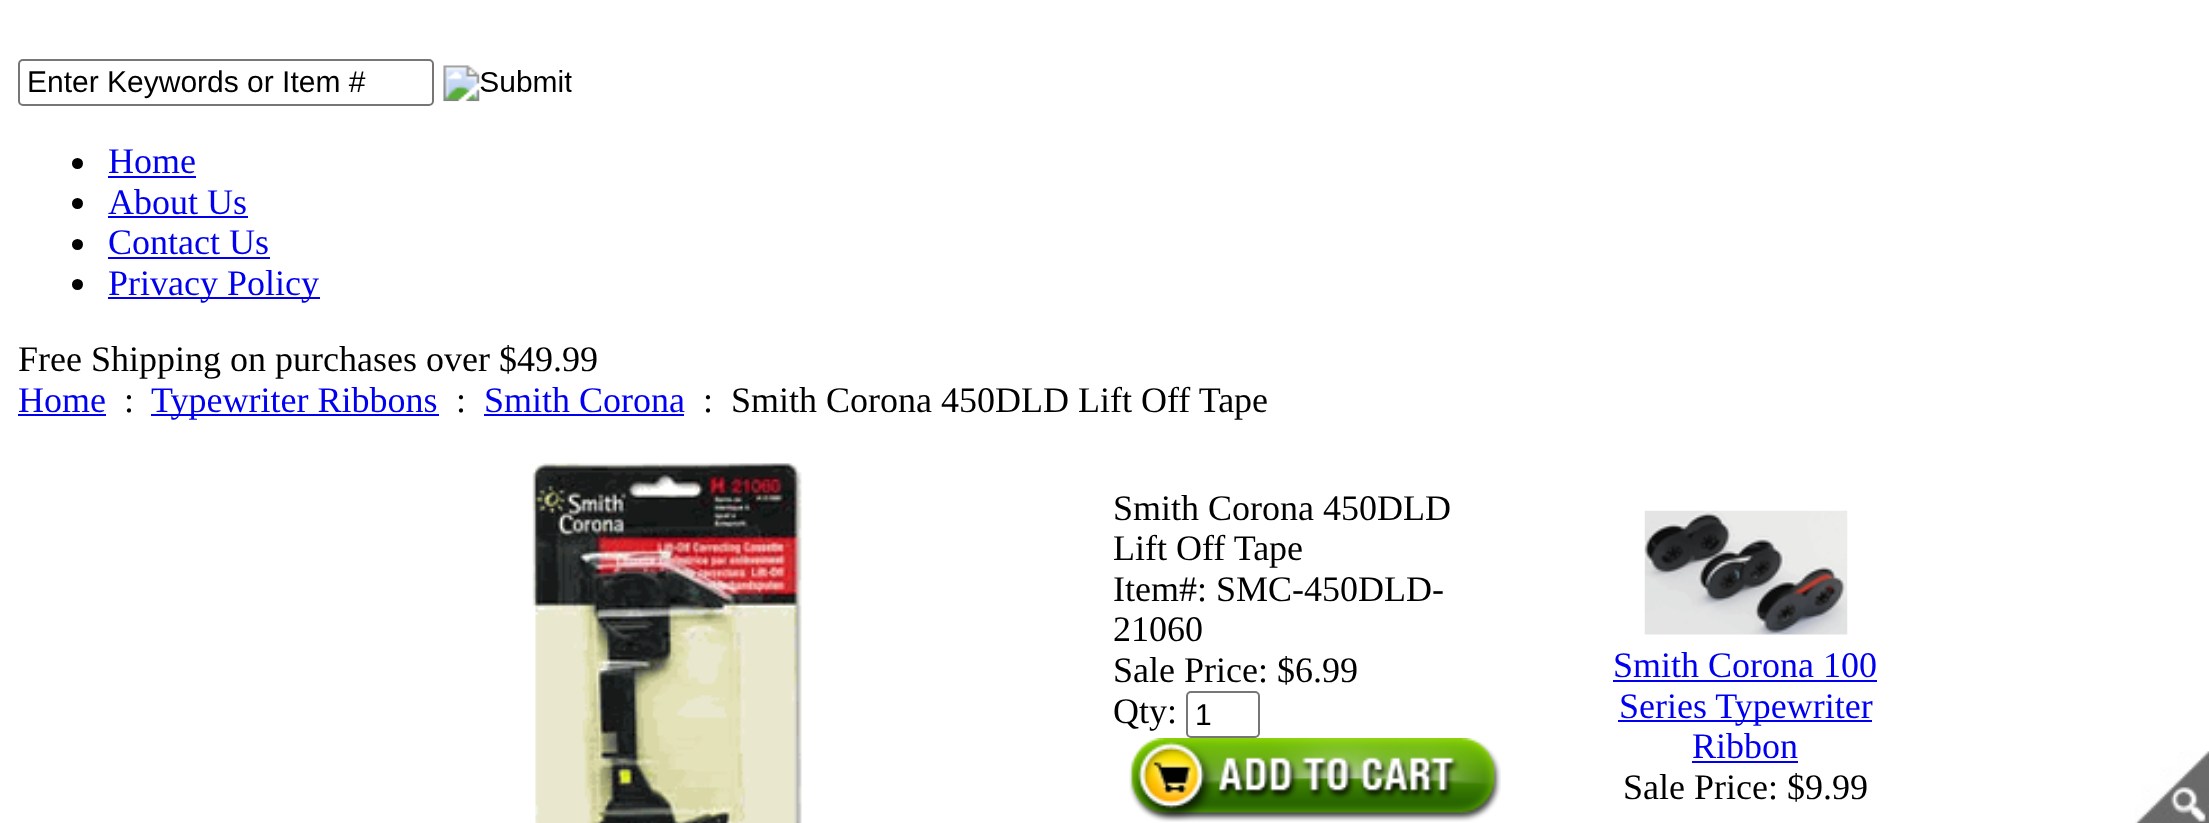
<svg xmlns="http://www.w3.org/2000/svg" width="2209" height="823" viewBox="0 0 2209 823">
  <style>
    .t1 { font: 30px Liberation Sans; fill: #000; }
    .t2 { font: 36px Liberation Serif; fill: #00e; }
    .t3 { font: 36px Liberation Serif; fill: #000; }
  </style>
  <rect width="100%" height="100%" fill="#fff"/>
  <rect x="19" y="60" width="414" height="45" rx="4" fill="none" stroke="#767676" stroke-width="2"/>
  <text x="27" y="92" class="t1">Enter Keywords or Item #</text>
  <image x="443" y="65" width="129" height="37" href="images/1.png"/>
  <circle cx="77.5" cy="163.5" r="5.5" fill="#000"/>
  <text x="108" y="173" class="t2">Home</text>
  <rect x="108" y="176" width="88" height="2" fill="#00e"/>
  <circle cx="77.5" cy="203.5" r="5.5" fill="#000"/>
  <text x="108" y="214" class="t2">About Us</text>
  <rect x="108" y="216" width="140" height="2" fill="#00e"/>
  <circle cx="77.5" cy="244.5" r="5.5" fill="#000"/>
  <text x="108" y="254" class="t2">Contact Us</text>
  <rect x="108" y="257" width="162" height="2" fill="#00e"/>
  <circle cx="77.5" cy="284.5" r="5.5" fill="#000"/>
  <rect x="108" y="297" width="212" height="2" fill="#00e"/>
  <text x="108" y="295" class="t2">Privacy Policy</text>
  <text x="18" y="371" class="t3">Free Shipping on purchases over $49.99</text>
  <text x="18" y="412" class="t2">Home</text>
  <rect x="18" y="414" width="88" height="2" fill="#00e"/>
  <text x="124" y="412" class="t3">:</text>
  <rect x="151" y="414" width="288" height="2" fill="#00e"/>
  <text x="151" y="412" class="t2">Typewriter Ribbons</text>
  <text x="456" y="412" class="t3">:</text>
  <text x="484" y="412" class="t2">Smith Corona</text>
  <rect x="484" y="414" width="200" height="2" fill="#00e"/>
  <text x="703" y="412" class="t3">:</text>
  <text x="731" y="412" class="t3">Smith Corona 450DLD Lift Off Tape</text>
  <image x="532" y="463" width="270" height="360" href="images/2.png"/>
  <image x="2135" y="751" width="74" height="72" href="images/3.png"/>
  <text x="1113" y="520" class="t3">Smith Corona 450DLD</text>
  <text x="1113" y="560" class="t3">Lift Off Tape</text>
  <text x="1113" y="601" class="t3">Item#: SMC-450DLD-</text>
  <text x="1113" y="641" class="t3">21060</text>
  <text x="1113" y="682" class="t3">Sale Price: $6.99</text>
  <text x="1113" y="723" class="t3">Qty:</text>
  <rect x="1187" y="692" width="72" height="45" rx="4" fill="none" stroke="#767676" stroke-width="2"/>
  <text x="1195" y="725" class="t1">1</text>
  <image x="1129" y="738" width="372" height="84" href="images/4.png"/>
  <image x="1644" y="510" width="204" height="125" href="images/5.png"/>
  <text x="1613" y="677" class="t2">Smith Corona 100</text>
  <rect x="1613" y="680" width="264" height="2" fill="#00e"/>
  <rect x="1618" y="720" width="254" height="2" fill="#00e"/>
  <text x="1619" y="718" class="t2">Series Typewriter</text>
  <text x="1692" y="758" class="t2">Ribbon</text>
  <rect x="1692" y="761" width="106" height="2" fill="#00e"/>
  <text x="1623" y="799" class="t3">Sale Price: $9.99</text>
</svg>
